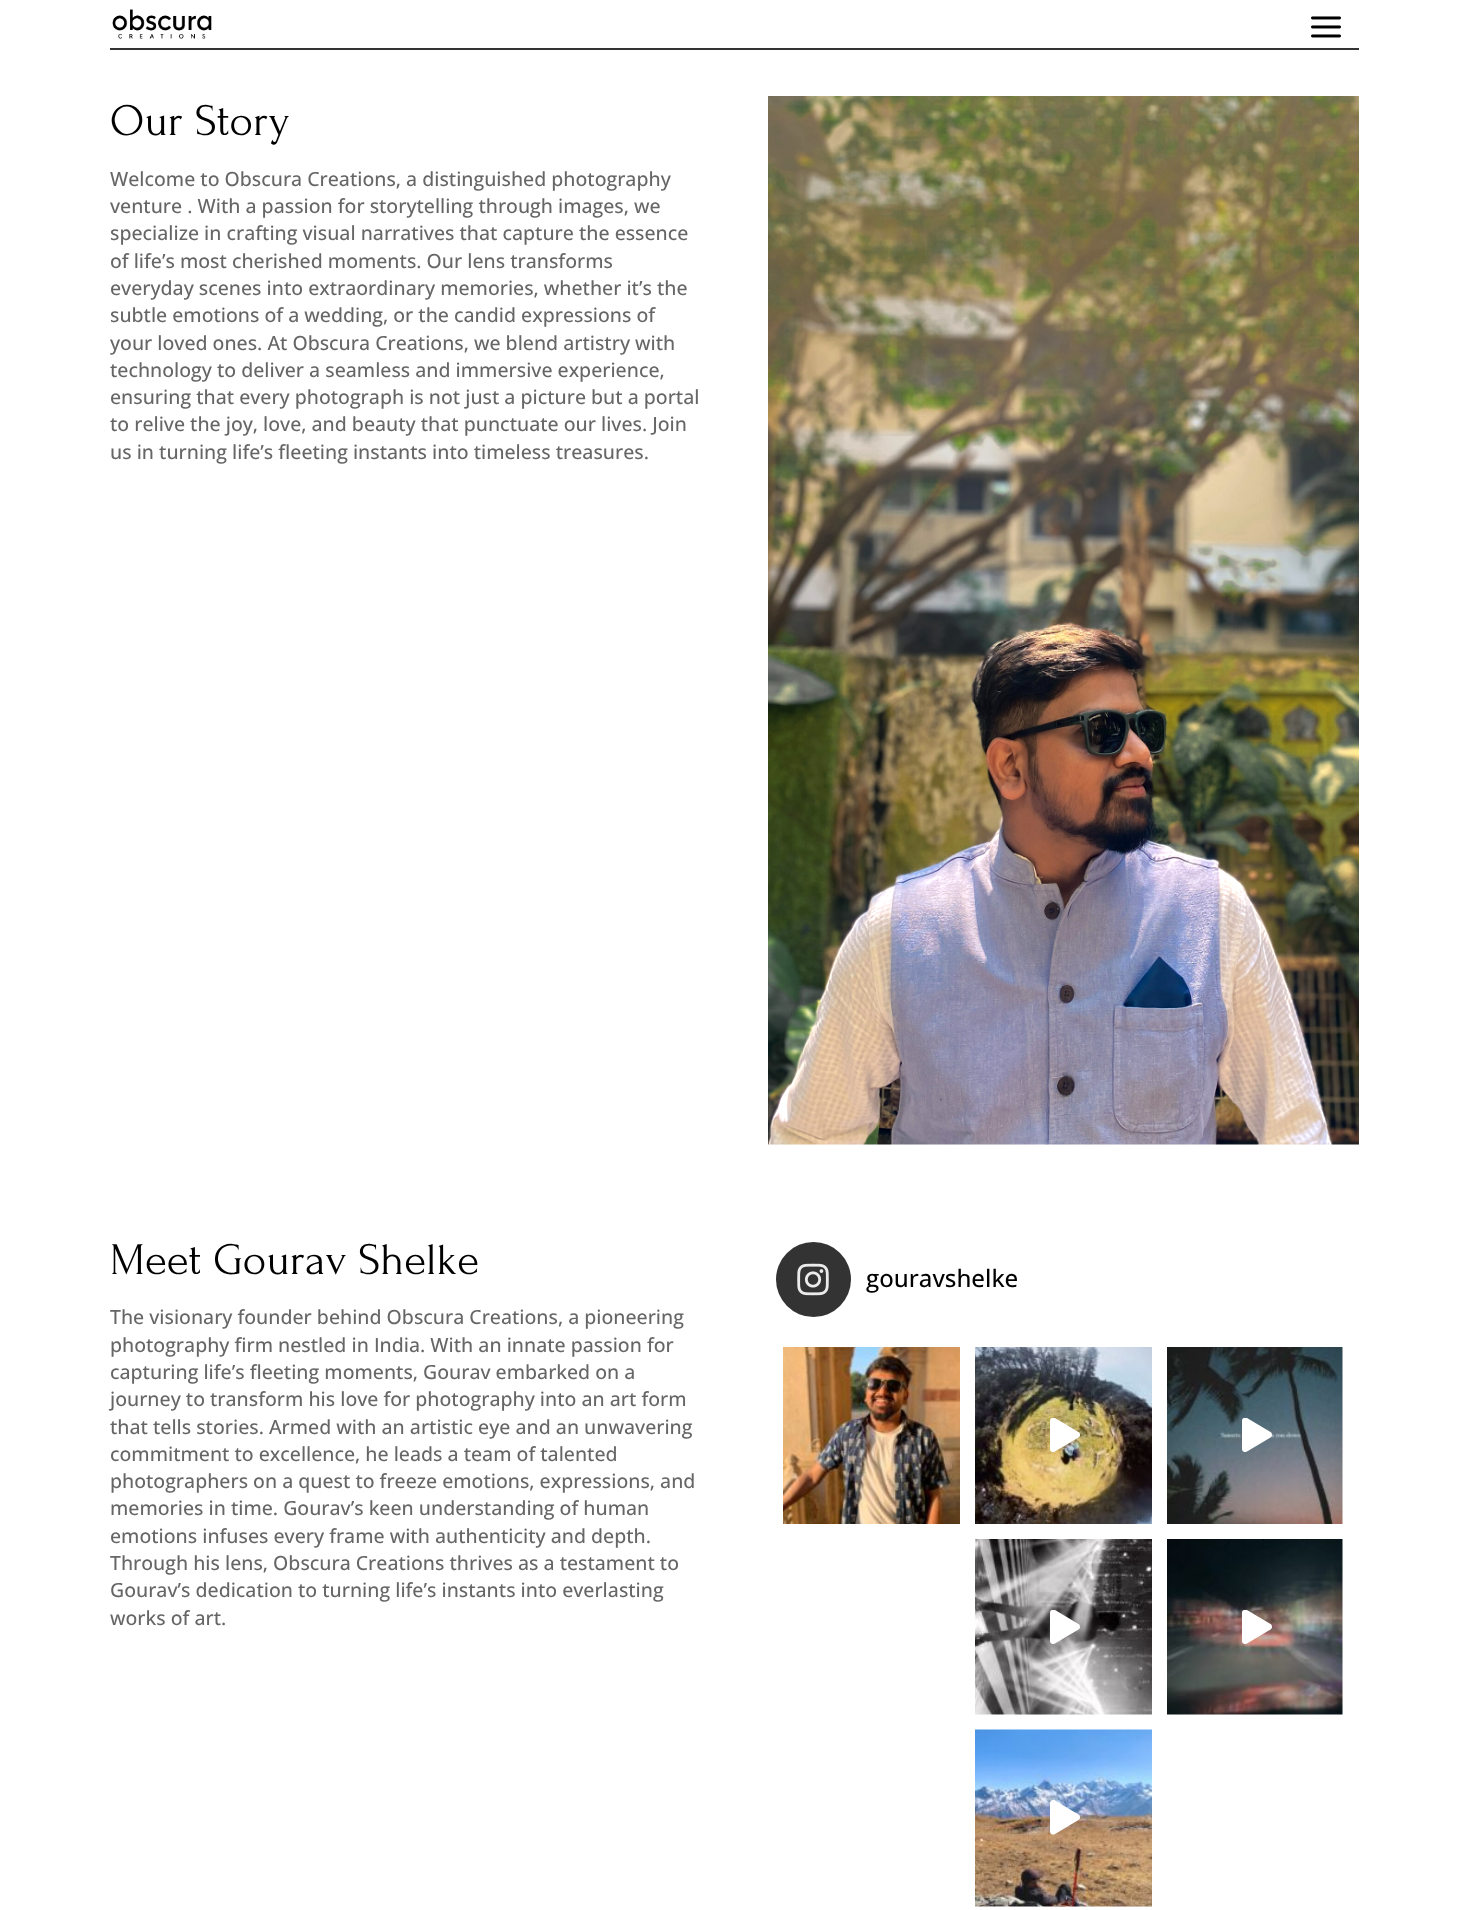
<svg xmlns="http://www.w3.org/2000/svg" width="1468" height="1910" viewBox="0 0 1468 1910">
  <style>
    .t1 { font: 45px Forum; fill: #000; }
    .t2 { font: 500 19.5px Open Sans; fill: #666; }
    .t3 { font: 500 24px Open Sans; fill: #000; }
  </style>
  <defs>
    <clipPath id="clip1"><rect x="1050" y="1418" width="30" height="34"/></clipPath>
    <clipPath id="clip2"><rect x="1242" y="1418" width="30" height="34"/></clipPath>
    <clipPath id="clip3"><rect x="1050" y="1610" width="30" height="34"/></clipPath>
    <clipPath id="clip4"><rect x="1242" y="1610" width="30" height="34"/></clipPath>
  </defs>
  <rect width="100%" height="100%" fill="#fff"/>
  <rect x="110" y="48" width="1249" height="2" fill="#333"/>
  <image x="112" y="9" width="100" height="30" href="images/1.png"/>
  <image x="1311" y="16" width="30" height="22" href="images/2.png"/>
  <text x="110" y="135" class="t1">Our Story</text>
  <text x="110" y="186" class="t2">Welcome to Obscura Creations, a distinguished photography</text>
  <text x="110" y="213" class="t2">venture . With a passion for storytelling through images, we</text>
  <text x="110" y="240" class="t2">specialize in crafting visual narratives that capture the essence</text>
  <text x="110" y="268" class="t2">of life’s most cherished moments. Our lens transforms</text>
  <text x="110" y="295" class="t2">everyday scenes into extraordinary memories, whether it’s the</text>
  <text x="110" y="322" class="t2">subtle emotions of a wedding, or the candid expressions of</text>
  <text x="110" y="350" class="t2">your loved ones. At Obscura Creations, we blend artistry with</text>
  <text x="110" y="377" class="t2">technology to deliver a seamless and immersive experience,</text>
  <text x="110" y="404" class="t2">ensuring that every photograph is not just a picture but a portal</text>
  <text x="110" y="431" class="t2">to relive the joy, love, and beauty that punctuate our lives. Join</text>
  <text x="110" y="459" class="t2">us in turning life’s fleeting instants into timeless treasures.</text>
  <image x="768" y="96" width="591" height="1049" href="images/3.png"/>
  <text x="110" y="1274" class="t1">Meet Gourav Shelke</text>
  <text x="110" y="1324" class="t2">The visionary founder behind Obscura Creations, a pioneering</text>
  <text x="110" y="1352" class="t2">photography firm nestled in India. With an innate passion for</text>
  <text x="110" y="1379" class="t2">capturing life’s fleeting moments, Gourav embarked on a</text>
  <text x="110" y="1406" class="t2">journey to transform his love for photography into an art form</text>
  <text x="110" y="1434" class="t2">that tells stories. Armed with an artistic eye and an unwavering</text>
  <text x="110" y="1461" class="t2">commitment to excellence, he leads a team of talented</text>
  <text x="110" y="1488" class="t2">photographers on a quest to freeze emotions, expressions, and</text>
  <text x="110" y="1515" class="t2">memories in time. Gourav’s keen understanding of human</text>
  <text x="110" y="1543" class="t2">emotions infuses every frame with authenticity and depth.</text>
  <text x="110" y="1570" class="t2">Through his lens, Obscura Creations thrives as a testament to</text>
  <text x="110" y="1597" class="t2">Gourav’s dedication to turning life’s instants into everlasting</text>
  <text x="110" y="1625" class="t2">works of art.</text>
  <circle cx="813.5" cy="1279.5" r="37.5" fill="#333"/>
  <image x="797" y="1263" width="32" height="33" href="images/4.png"/>
  <text x="866" y="1287" class="t3">gouravshelke</text>
  <image x="783" y="1347" width="177" height="177" href="images/5.png"/>
  <image x="975" y="1347" width="177" height="177" href="images/6.png"/>
  <g clip-path="url(#clip1)">
    <path d="M1078.5 1432L1055 1418C1053 1417 1050 1418 1050 1420.5V1449C1050 1451.5 1052.5 1453 1055 1451.5L1078.5 1437.5C1080.5 1436.5 1080.5 1433 1078.5 1432Z" fill="#fff"/>
  </g>
  <image x="1167" y="1347" width="176" height="177" href="images/7.png"/>
  <g clip-path="url(#clip2)">
    <path d="M1270.5 1432L1247 1418C1245 1417 1242 1418 1242 1420.5V1449C1242 1451.5 1244.5 1453 1247 1451.5L1270.5 1437.5C1272.5 1436.5 1272.5 1433 1270.5 1432Z" fill="#fff"/>
  </g>
  <image x="975" y="1539" width="177" height="176" href="images/8.png"/>
  <g clip-path="url(#clip3)">
    <path d="M1078.5 1624L1055 1610C1053 1609 1050 1610 1050 1612.5V1641C1050 1643.5 1052.5 1645 1055 1643.5L1078.5 1629.5C1080.5 1628.5 1080.5 1625 1078.5 1624Z" fill="#fff"/>
  </g>
  <image x="1167" y="1539" width="176" height="176" href="images/9.png"/>
  <g clip-path="url(#clip4)">
    <path d="M1270.5 1624L1247 1610C1245 1609 1242 1610 1242 1612.5V1641C1242 1643.5 1244.5 1645 1247 1643.5L1270.5 1629.5C1272.5 1628.5 1272.5 1625 1270.5 1624Z" fill="#fff"/>
  </g>
  <image x="975" y="1729" width="177" height="178" href="images/10.png"/>
  <path d="M1078.5 1814.5L1055 1800.5C1053 1799.5 1050 1800.5 1050 1803V1831.5C1050 1834 1052.5 1835.5 1055 1834L1078.5 1820C1080.5 1819 1080.5 1815.5 1078.5 1814.5Z" fill="#fff"/>
</svg>
